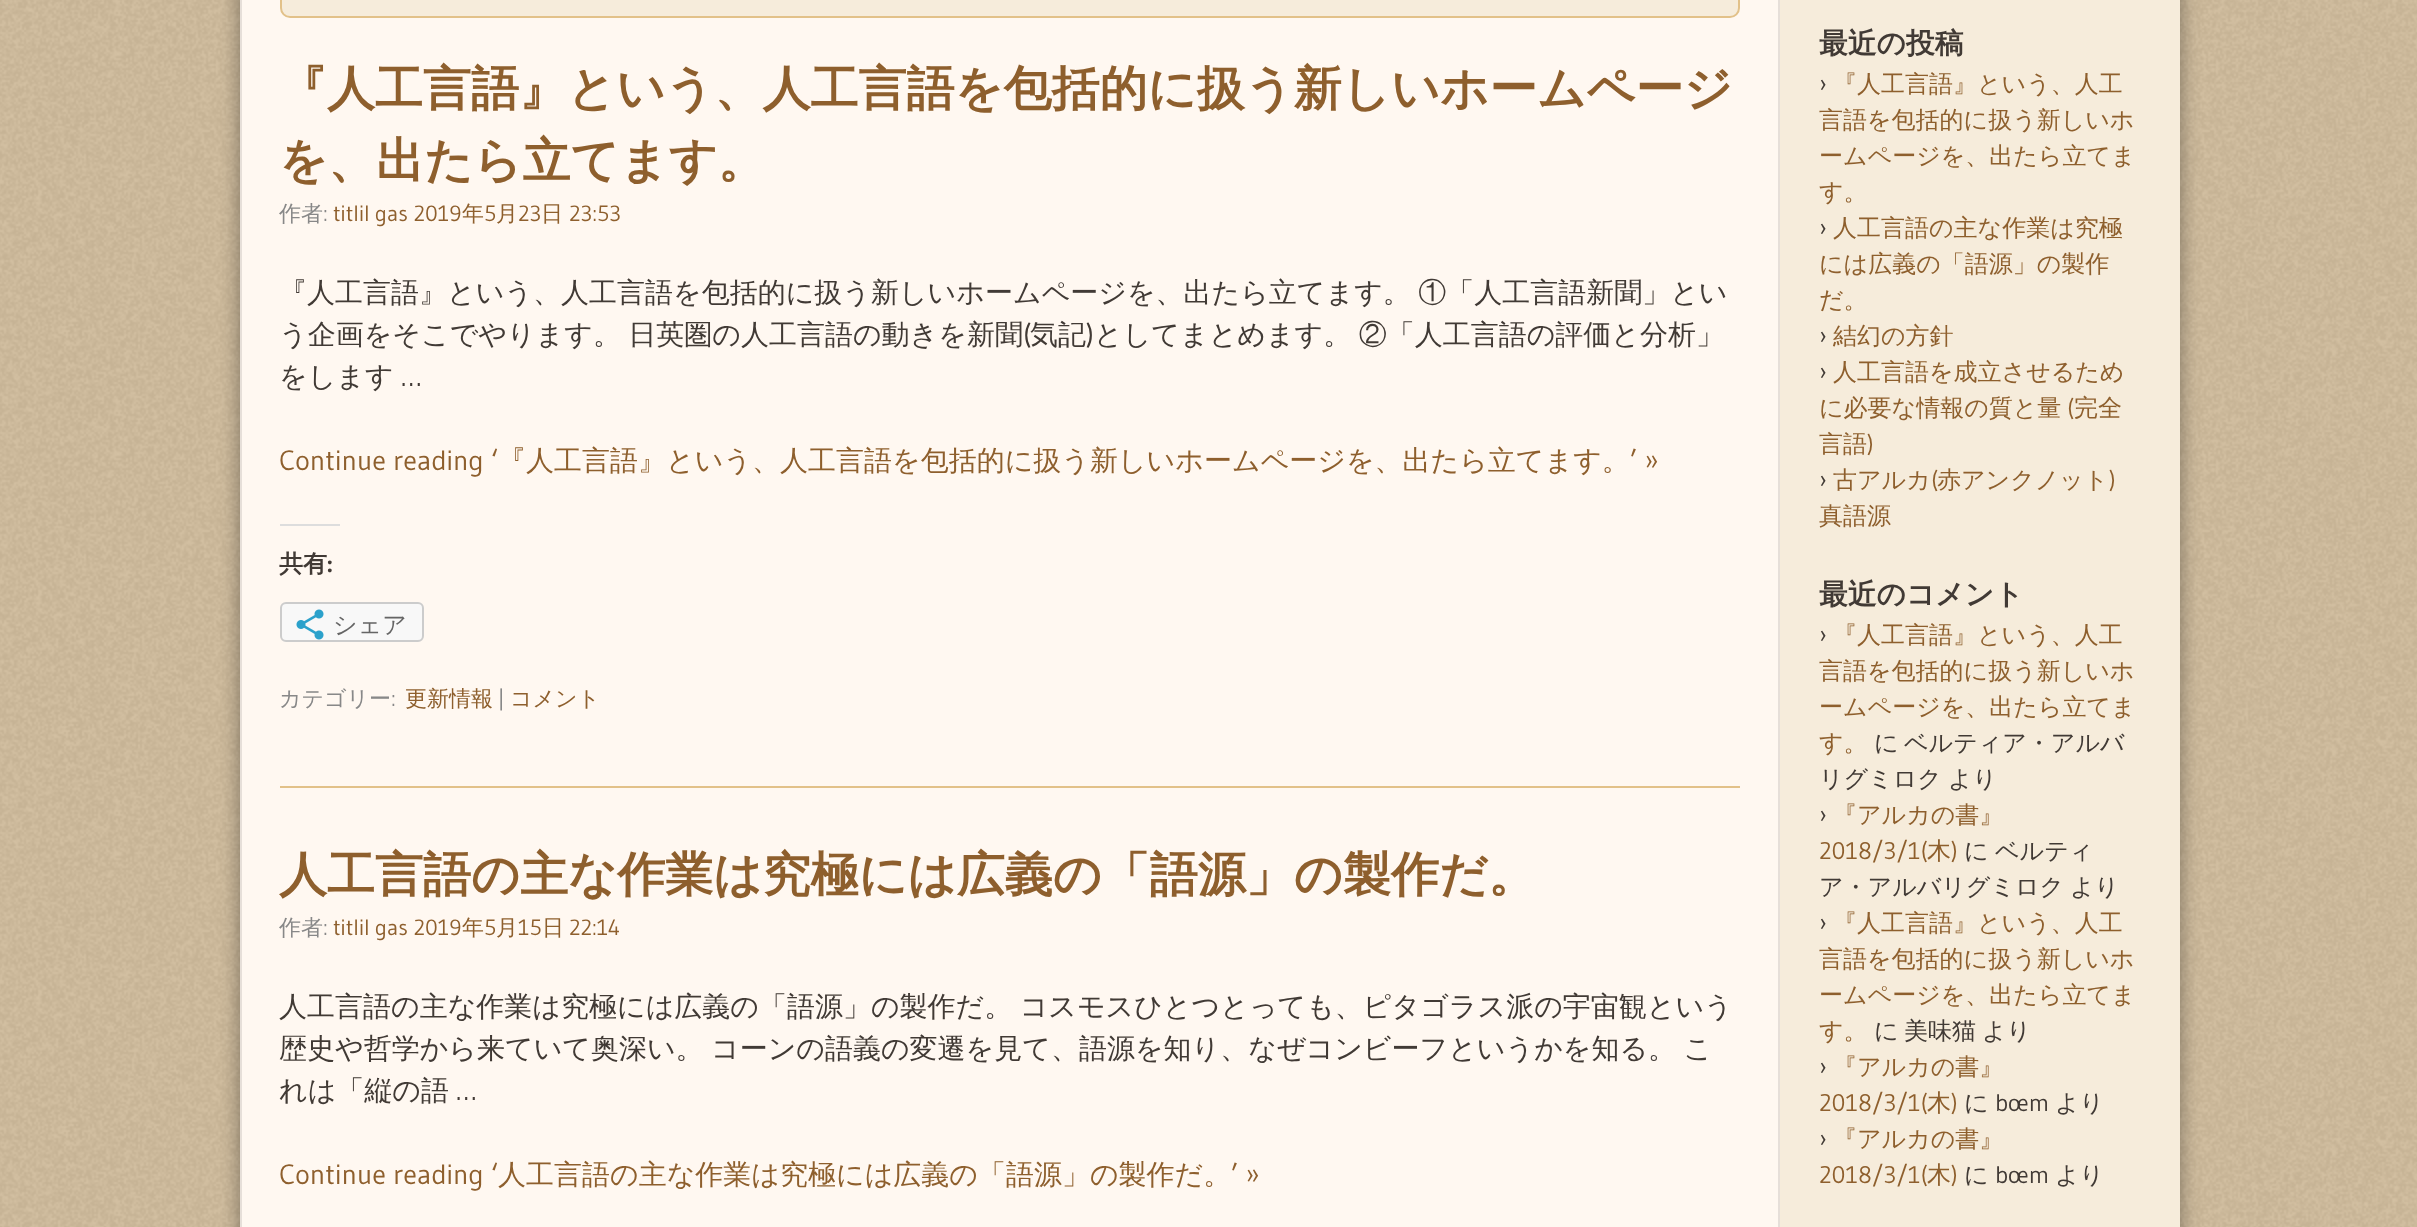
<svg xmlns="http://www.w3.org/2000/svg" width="2417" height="1227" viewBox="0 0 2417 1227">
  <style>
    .t1 { font: bold 48px WenQuanYi Zen Hei; fill: #8e5f2d; }
    .t2 { font: 500 22px WenQuanYi Zen Hei; fill: #888; }
    .t3 { font: 22px Gudea; fill: #888; }
    .t4 { font: 22px Gudea; fill: #8e5f2d; }
    .t5 { font: 500 22px WenQuanYi Zen Hei; fill: #8e5f2d; }
    .t6 { font: 500 28px WenQuanYi Zen Hei; fill: #413a35; }
    .t7 { font: 28px Gudea; fill: #413a35; }
    .t8 { font: 28px Gudea; fill: #8e5f2d; }
    .t9 { font: 500 28px WenQuanYi Zen Hei; fill: #8e5f2d; }
    .t10 { font: bold 24px WenQuanYi Zen Hei; fill: #413a35; }
    .t11 { font: bold 24px Bitter; fill: #413a35; }
    .t12 { font: 500 24px WenQuanYi Zen Hei; fill: #656565; }
    .t13 { font: bold 28.75px WenQuanYi Zen Hei; fill: #413a35; }
    .t14 { font: 24px Gudea; fill: #413a35; }
    .t15 { font: 500 24px WenQuanYi Zen Hei; fill: #8e5f2d; }
    .t16 { font: 24px Gudea; fill: #8e5f2d; }
    .t17 { font: 500 24px WenQuanYi Zen Hei; fill: #413a35; }
  </style>
  <rect width="100%" height="100%" fill="#d1bd9d"/>
  <image x="0" y="0" width="2417" height="1227" href="images/1.png"/>
  <rect x="240" y="-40" width="1940" height="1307" rx="10" fill="#00000066" filter="blur(10px)"/>
  <rect x="242" y="0" width="1536" height="1227" fill="#fff8f1"/>
  <rect x="241" y="-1" width="1938" height="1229" fill="none" stroke="#e6dfd9" stroke-width="2"/>
  <rect x="281" y="-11" width="1458" height="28" rx="9" fill="#f6ecdb" stroke="#e2c189" stroke-width="2"/>
  <rect x="280" y="786" width="1460" height="2" fill="#e2c189"/>
  <text x="279" y="105" class="t1">『人工言語』という、人工言語を包括的に扱う新しいホームページ</text>
  <text x="279" y="177" class="t1">を、出たら立てます。</text>
  <text x="279" y="221" class="t2">作者</text>
  <text x="323" y="221" class="t3">:</text>
  <text x="333" y="221" class="t4">titlil gas 2019</text>
  <text x="462" y="221" class="t5">年</text>
  <text x="484" y="221" class="t4">5</text>
  <text x="496" y="221" class="t5">月</text>
  <text x="518" y="221" class="t4">23</text>
  <text x="541" y="221" class="t5">日</text>
  <text x="569" y="221" class="t4">23:53</text>
  <text x="279" y="302" word-spacing="-1" class="t6">『人工言語』という、人工言語を包括的に扱う新しいホームページを、出たら立てます。 ①「人工言語新聞」とい</text>
  <text x="279" y="344" word-spacing="-1" class="t6">う企画をそこでやります。 日英圏の人工言語の動きを新聞</text>
  <text x="1023" y="344" class="t7">(</text>
  <text x="1030" y="344" class="t6">気記</text>
  <text x="1086" y="344" class="t7">)</text>
  <text x="1094" y="344" word-spacing="-1" class="t6">としてまとめます。 ②「人工言語の評価と分析」</text>
  <text x="279" y="386" class="t6">をします</text>
  <text x="401" y="386" class="t7">…</text>
  <text x="279" y="470" class="t8">Continue reading ‘</text>
  <text x="498" y="470" class="t9">『人工言語』という、人工言語を包括的に扱う新しいホームページを、出たら立てます。</text>
  <text x="1630" y="470" class="t8">’ »</text>
  <rect x="280" y="524" width="60" height="2" fill="#ddd"/>
  <text x="279" y="572" class="t10">共有</text>
  <text x="327" y="572" class="t11">:</text>
  <rect x="281" y="603" width="142" height="38" rx="5" fill="#f8f8f8" stroke="#ccc" stroke-width="2"/>
  <image x="296" y="609" width="28" height="31" href="images/2.png"/>
  <text x="333" y="633" class="t12">シェア</text>
  <text x="279" y="706" class="t2">カテゴリー</text>
  <text x="391" y="706" class="t3">:</text>
  <text x="405" y="706" class="t5">更新情報</text>
  <text x="498" y="706" class="t3">|</text>
  <text x="510" y="706" class="t5">コメント</text>
  <text x="279" y="891" class="t1">人工言語の主な作業は究極には広義の「語源」の製作だ。</text>
  <text x="279" y="935" class="t2">作者</text>
  <text x="323" y="935" class="t3">:</text>
  <text x="333" y="935" class="t4">titlil gas 2019</text>
  <text x="462" y="935" class="t5">年</text>
  <text x="484" y="935" class="t4">5</text>
  <text x="496" y="935" class="t5">月</text>
  <text x="518" y="935" class="t4">15</text>
  <text x="542" y="935" class="t5">日</text>
  <text x="569" y="935" class="t4">22:14</text>
  <text x="279" y="1016" word-spacing="-1" class="t6">人工言語の主な作業は究極には広義の「語源」の製作だ。 コスモスひとつとっても、ピタゴラス派の宇宙観という</text>
  <text x="279" y="1058" word-spacing="-1" class="t6">歴史や哲学から来ていて奥深い。 コーンの語義の変遷を見て、語源を知り、なぜコンビーフというかを知る。 こ</text>
  <text x="279" y="1100" class="t6">れは「縦の語</text>
  <text x="456" y="1100" class="t7">…</text>
  <text x="279" y="1184" class="t8">Continue reading ‘</text>
  <text x="498" y="1184" class="t9">人工言語の主な作業は究極には広義の「語源」の製作だ。</text>
  <text x="1231" y="1184" class="t8">’ »</text>
  <path d="M1778-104V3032C1778 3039 1783 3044 1790 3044H2180V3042H1790C1784 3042 1780 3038 1780 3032V-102H2180V-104Z" fill="#e6dfd9"/>
  <rect x="1780" y="0" width="400" height="1227" fill="#f6ecdb"/>
  <text x="1819" y="53" class="t13">最近の投稿</text>
  <text x="1819" y="92" class="t14">›</text>
  <text x="1833" y="92" class="t15">『人工言語』という、人工</text>
  <text x="1819" y="128" class="t15">言語を包括的に扱う新しいホ</text>
  <text x="1819" y="164" class="t15">ームページを、出たら立てま</text>
  <text x="1819" y="200" class="t15">す。</text>
  <text x="1819" y="236" class="t14">›</text>
  <text x="1833" y="236" class="t15">人工言語の主な作業は究極</text>
  <text x="1819" y="272" class="t15">には広義の「語源」の製作</text>
  <text x="1819" y="308" class="t15">だ。</text>
  <text x="1819" y="344" class="t14">›</text>
  <text x="1833" y="344" class="t15">結幻の方針</text>
  <text x="1819" y="380" class="t14">›</text>
  <text x="1833" y="380" class="t15">人工言語を成立させるため</text>
  <text x="1819" y="416" class="t15">に必要な情報の質と量</text>
  <text x="2067" y="416" class="t16">(</text>
  <text x="2074" y="416" class="t15">完全</text>
  <text x="1819" y="452" class="t15">言語</text>
  <text x="1867" y="452" class="t16">)</text>
  <text x="1819" y="488" class="t14">›</text>
  <text x="1833" y="488" class="t15">古アルカ</text>
  <text x="1931" y="488" class="t16">(</text>
  <text x="1937" y="488" class="t15">赤アンクノット</text>
  <text x="2109" y="488" class="t16">)</text>
  <text x="1819" y="524" class="t15">真語源</text>
  <text x="1819" y="604" class="t13">最近のコメント</text>
  <text x="1819" y="643" class="t14">›</text>
  <text x="1833" y="643" class="t15">『人工言語』という、人工</text>
  <text x="1819" y="679" class="t15">言語を包括的に扱う新しいホ</text>
  <text x="1819" y="715" class="t15">ームページを、出たら立てま</text>
  <text x="1819" y="751" class="t15">す。</text>
  <text x="1874" y="751" class="t17">に</text>
  <text x="1904" y="751" class="t17">ベルティア・アルバ</text>
  <text x="1819" y="787" class="t17">リグミロク</text>
  <text x="1948" y="787" class="t17">より</text>
  <text x="1819" y="823" class="t14">›</text>
  <text x="1833" y="823" class="t15">『アルカの書』</text>
  <text x="1819" y="859" class="t16">2018/3/1(</text>
  <text x="1927" y="859" class="t15">木</text>
  <text x="1951" y="859" class="t16">)</text>
  <text x="1964" y="859" class="t17">に</text>
  <text x="1995" y="859" class="t17">ベルティ</text>
  <text x="1819" y="895" class="t17">ア・アルバリグミロク</text>
  <text x="2070" y="895" class="t17">より</text>
  <text x="1819" y="931" class="t14">›</text>
  <text x="1833" y="931" class="t15">『人工言語』という、人工</text>
  <text x="1819" y="967" class="t15">言語を包括的に扱う新しいホ</text>
  <text x="1819" y="1003" class="t15">ームページを、出たら立てま</text>
  <text x="1819" y="1039" class="t15">す。</text>
  <text x="1874" y="1039" class="t17">に</text>
  <text x="1904" y="1039" class="t17">美味猫</text>
  <text x="1982" y="1039" class="t17">より</text>
  <text x="1819" y="1075" class="t14">›</text>
  <text x="1833" y="1075" class="t15">『アルカの書』</text>
  <text x="1819" y="1111" class="t16">2018/3/1(</text>
  <text x="1927" y="1111" class="t15">木</text>
  <text x="1951" y="1111" class="t16">)</text>
  <text x="1964" y="1111" class="t17">に</text>
  <text x="1995" y="1111" class="t14">bœm</text>
  <text x="2055" y="1111" class="t17">より</text>
  <text x="1819" y="1147" class="t14">›</text>
  <text x="1833" y="1147" class="t15">『アルカの書』</text>
  <text x="1819" y="1183" class="t16">2018/3/1(</text>
  <text x="1927" y="1183" class="t15">木</text>
  <text x="1951" y="1183" class="t16">)</text>
  <text x="1964" y="1183" class="t17">に</text>
  <text x="1995" y="1183" class="t14">bœm</text>
  <text x="2055" y="1183" class="t17">より</text>
</svg>
